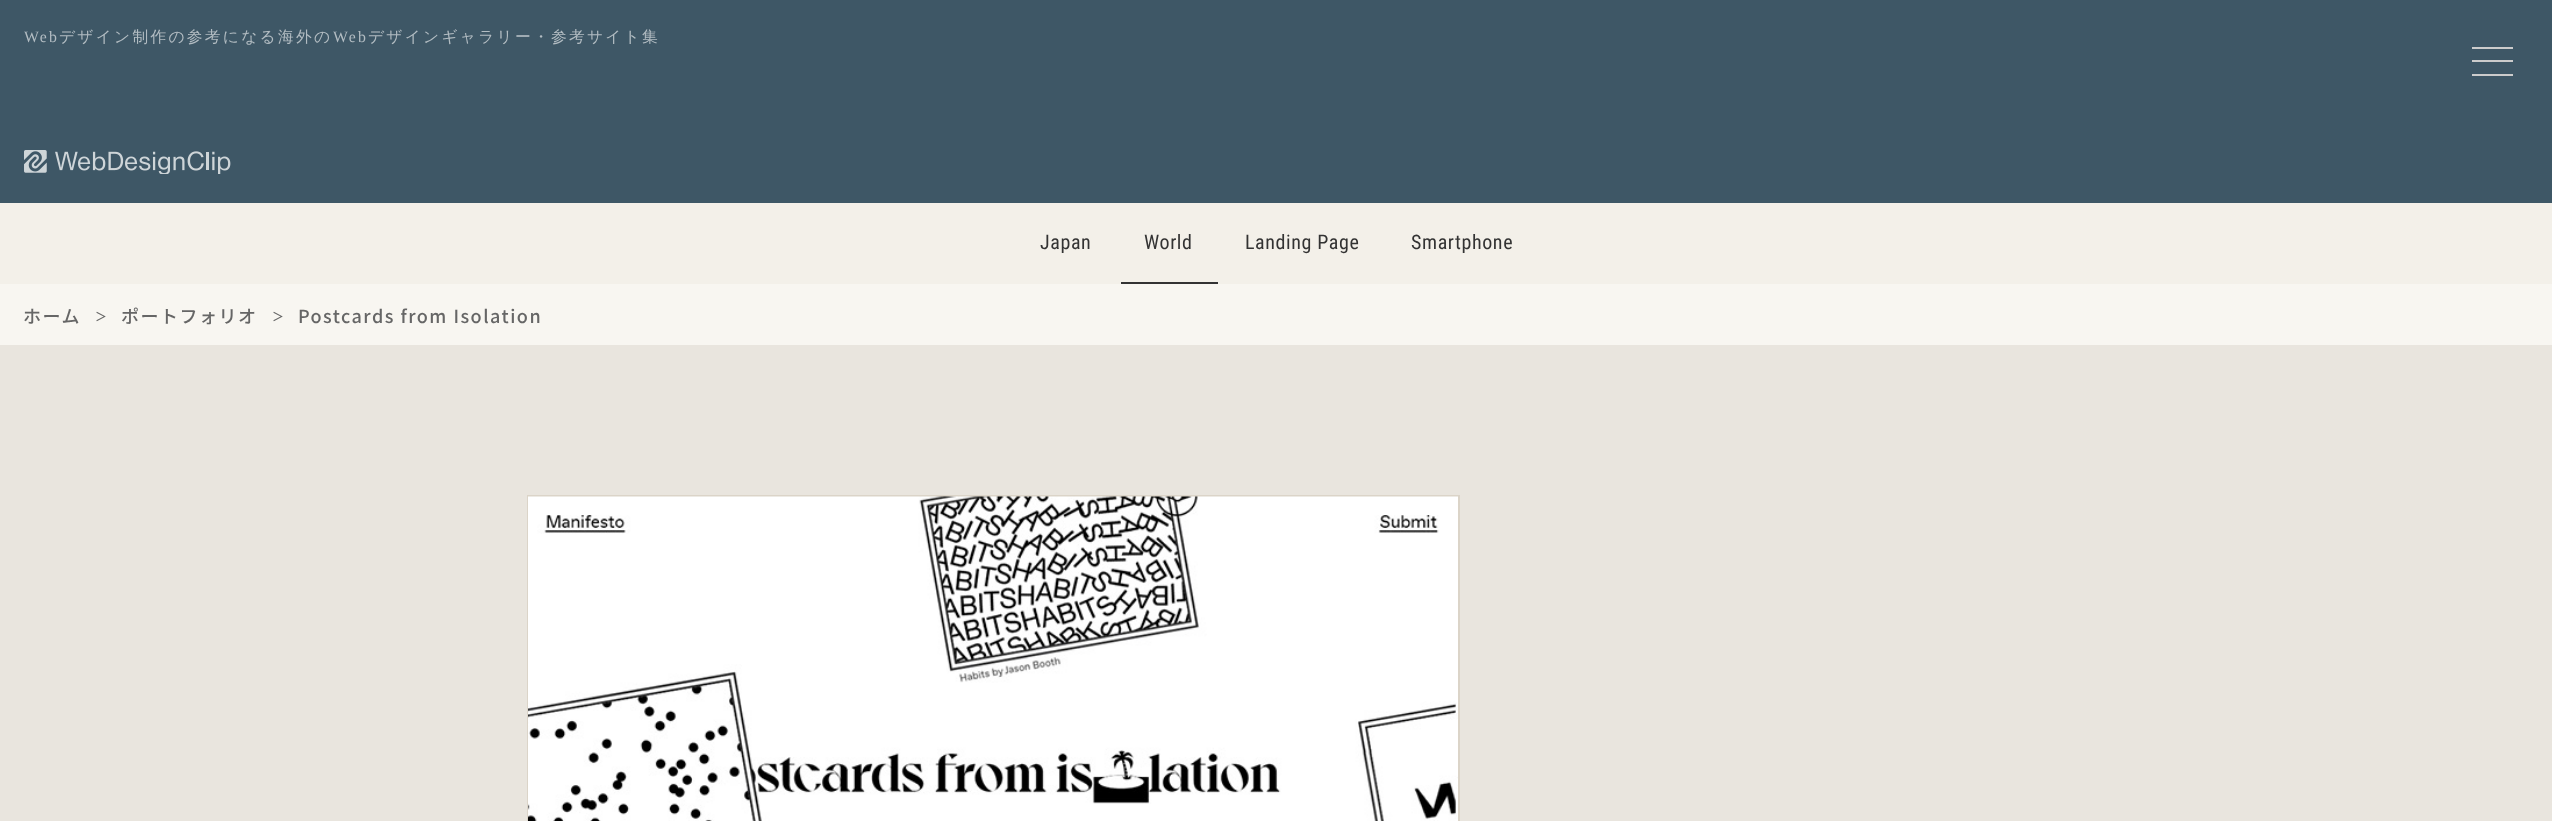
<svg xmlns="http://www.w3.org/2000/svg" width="2552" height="821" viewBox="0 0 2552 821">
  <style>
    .t1 { font: 15.75px Liberation Serif; letter-spacing: 2.25px; fill: #b2bcc2; }
    .t2 { font: 500 15.75px WenQuanYi Zen Hei; letter-spacing: 2.25px; fill: #b2bcc2; }
    .t3 { font: 20px Roboto Condensed; letter-spacing: 0.6px; fill: #333; }
    .t4 { font: 100 18px Noto Sans JP; letter-spacing: 1.5px; fill: #666; }
    .t5 { font: 100 12px Noto Sans JP; letter-spacing: 1.5px; fill: #666; }
  </style>
  <rect width="100%" height="100%" fill="#e9e5de"/>
  <rect x="0" y="0" width="2552" height="203" fill="#3e5766"/>
  <text x="24" y="42" class="t1">Web</text>
  <text x="59" y="42" class="t2">デザイン制作の参考になる海外の</text>
  <text x="333" y="42" class="t1">Web</text>
  <text x="368" y="42" class="t2">デザインギャラリー・参考サイト集</text>
  <image x="24" y="150" width="207" height="24" href="images/1.png"/>
  <rect x="0" y="203" width="2552" height="81" fill="#f3f0e9"/>
  <text x="1040" y="249" class="t3">Japan</text>
  <text x="1144" y="249" class="t3">World</text>
  <rect x="1121" y="282" width="97" height="2" fill="#333"/>
  <text x="1245" y="249" class="t3">Landing Page</text>
  <text x="1411" y="249" class="t3">Smartphone</text>
  <rect x="0" y="284" width="2552" height="61" fill="#f8f6f1"/>
  <text x="23" y="323" class="t4">ホーム</text>
  <text x="95" y="321" class="t5">＞</text>
  <text x="121" y="323" class="t4">ポートフォリオ</text>
  <text x="272" y="321" class="t5">＞</text>
  <text x="298" y="323" class="t4">Postcards from Isolation</text>
  <rect x="528" y="496" width="931" height="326" fill="none" stroke="#dbd4c8" stroke-width="2"/>
  <image x="528" y="496" width="930" height="325" href="images/2.png"/>
  <rect x="2472" y="47" width="41" height="2" fill="#ccc"/>
  <rect x="2472" y="60" width="41" height="2" fill="#ccc"/>
  <rect x="2472" y="74" width="41" height="2" fill="#ccc"/>
</svg>
